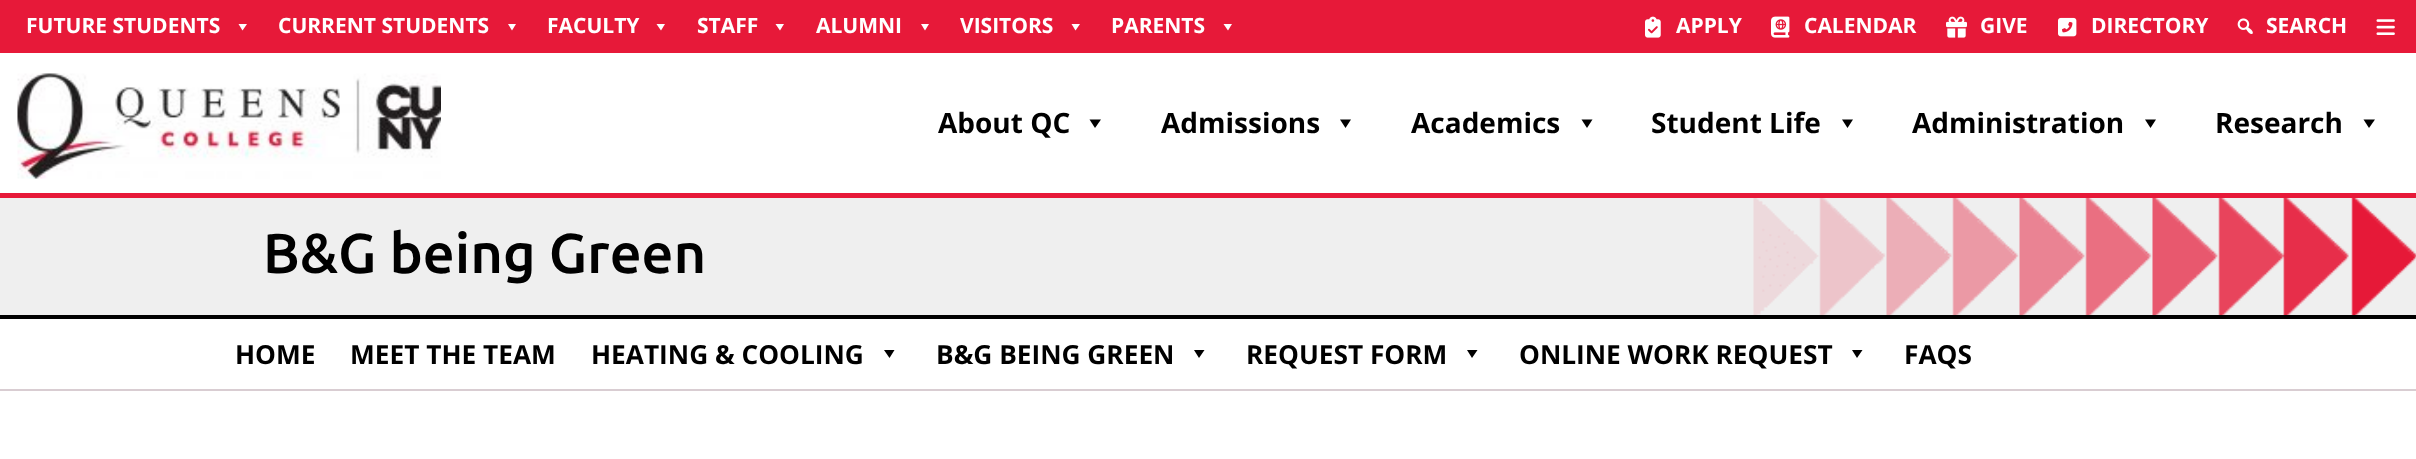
<svg xmlns="http://www.w3.org/2000/svg" width="2416" height="459" viewBox="0 0 2416 459">
  <style>
    .t1 { font: bold 21px Open Sans; fill: #fff; }
    .t2 { font: bold 28px Open Sans; fill: #000; }
    .t3 { font: 500 56px Ubuntu; fill: #000; }
    .t4 { font: bold 26.25px Open Sans; fill: #000; }
  </style>
  <rect width="100%" height="100%" fill="#fff"/>
  <rect x="0" y="0" width="2416" height="53" fill="#e71939"/>
  <text x="26" y="33" class="t1">FUTURE STUDENTS</text>
  <path d="M247 24L242.5 30.5L238.5 24Z" fill="#fff"/>
  <text x="278" y="33" class="t1">CURRENT STUDENTS</text>
  <path d="M516 24L512 30.5L508 24Z" fill="#fff"/>
  <text x="547" y="33" class="t1">FACULTY</text>
  <path d="M665 24L661 30.5L656.5 24Z" fill="#fff"/>
  <text x="697" y="33" class="t1">STAFF</text>
  <path d="M784 24L780 30.5L775.5 24Z" fill="#fff"/>
  <text x="816" y="33" class="t1">ALUMNI</text>
  <path d="M929 24L925 30.5L921 24Z" fill="#fff"/>
  <text x="960" y="33" class="t1">VISITORS</text>
  <path d="M1080 24L1075.5 30.5L1071.5 24Z" fill="#fff"/>
  <text x="1111" y="33" class="t1">PARENTS</text>
  <path d="M1232 24L1228 30.5L1223.5 24Z" fill="#fff"/>
  <image x="1645" y="16" width="16" height="22" href="images/1.png"/>
  <text x="1676" y="33" class="t1">APPLY</text>
  <image x="1771" y="16" width="19" height="22" href="images/2.png"/>
  <text x="1804" y="33" class="t1">CALENDAR</text>
  <image x="1946" y="16" width="21" height="22" href="images/3.png"/>
  <text x="1980" y="33" class="t1">GIVE</text>
  <image x="2058" y="17" width="19" height="20" href="images/4.png"/>
  <text x="2091" y="33" class="t1">DIRECTORY</text>
  <image x="2237" y="18" width="16" height="16" href="images/5.png"/>
  <text x="2266" y="33" class="t1">SEARCH</text>
  <image x="2376" y="19" width="19" height="16" href="images/6.png"/>
  <image x="17" y="73" width="424" height="106" href="images/7.png"/>
  <text x="938" y="133" class="t2">About QC</text>
  <path d="M1101 119.5L1095 128L1089.5 119.5Z" fill="#000"/>
  <text x="1161" y="133" class="t2">Admissions</text>
  <path d="M1351 119.5L1345.5 128L1340 119.5Z" fill="#000"/>
  <text x="1411" y="133" class="t2">Academics</text>
  <path d="M1592.5 119.5L1587 128L1581.5 119.5Z" fill="#000"/>
  <text x="1651" y="133" class="t2">Student Life</text>
  <path d="M1853 119.5L1847.5 128L1842 119.5Z" fill="#000"/>
  <text x="1912" y="133" class="t2">Administration</text>
  <path d="M2156 119.5L2150.5 128L2145 119.5Z" fill="#000"/>
  <text x="2215" y="133" class="t2">Research</text>
  <path d="M2375 119.5L2369 128L2363.5 119.5Z" fill="#000"/>
  <rect x="0" y="198" width="2416" height="117" fill="#efefef"/>
  <image x="1753" y="198" width="663" height="117" href="images/8.png"/>
  <rect x="0" y="193" width="2416" height="5" fill="#e71939"/>
  <text x="263" y="273" class="t3">B&amp;G being Green</text>
  <rect x="0" y="315" width="2416" height="4" fill="#000"/>
  <rect x="0" y="389" width="2416" height="2" fill="#d9cdd2"/>
  <text x="235" y="364" class="t4">HOME</text>
  <text x="350" y="364" class="t4">MEET THE TEAM</text>
  <text x="591" y="364" class="t4">HEATING &amp; COOLING</text>
  <path d="M894.5 350L889.5 358L884 350Z" fill="#000"/>
  <text x="936" y="364" class="t4">B&amp;G BEING GREEN</text>
  <path d="M1204.5 350L1199 358L1194 350Z" fill="#000"/>
  <text x="1246" y="364" class="t4">REQUEST FORM</text>
  <path d="M1477.5 350L1472 358L1467 350Z" fill="#000"/>
  <text x="1519" y="364" class="t4">ONLINE WORK REQUEST</text>
  <path d="M1862.5 350L1857 358L1852 350Z" fill="#000"/>
  <text x="1904" y="364" class="t4">FAQS</text>
</svg>
